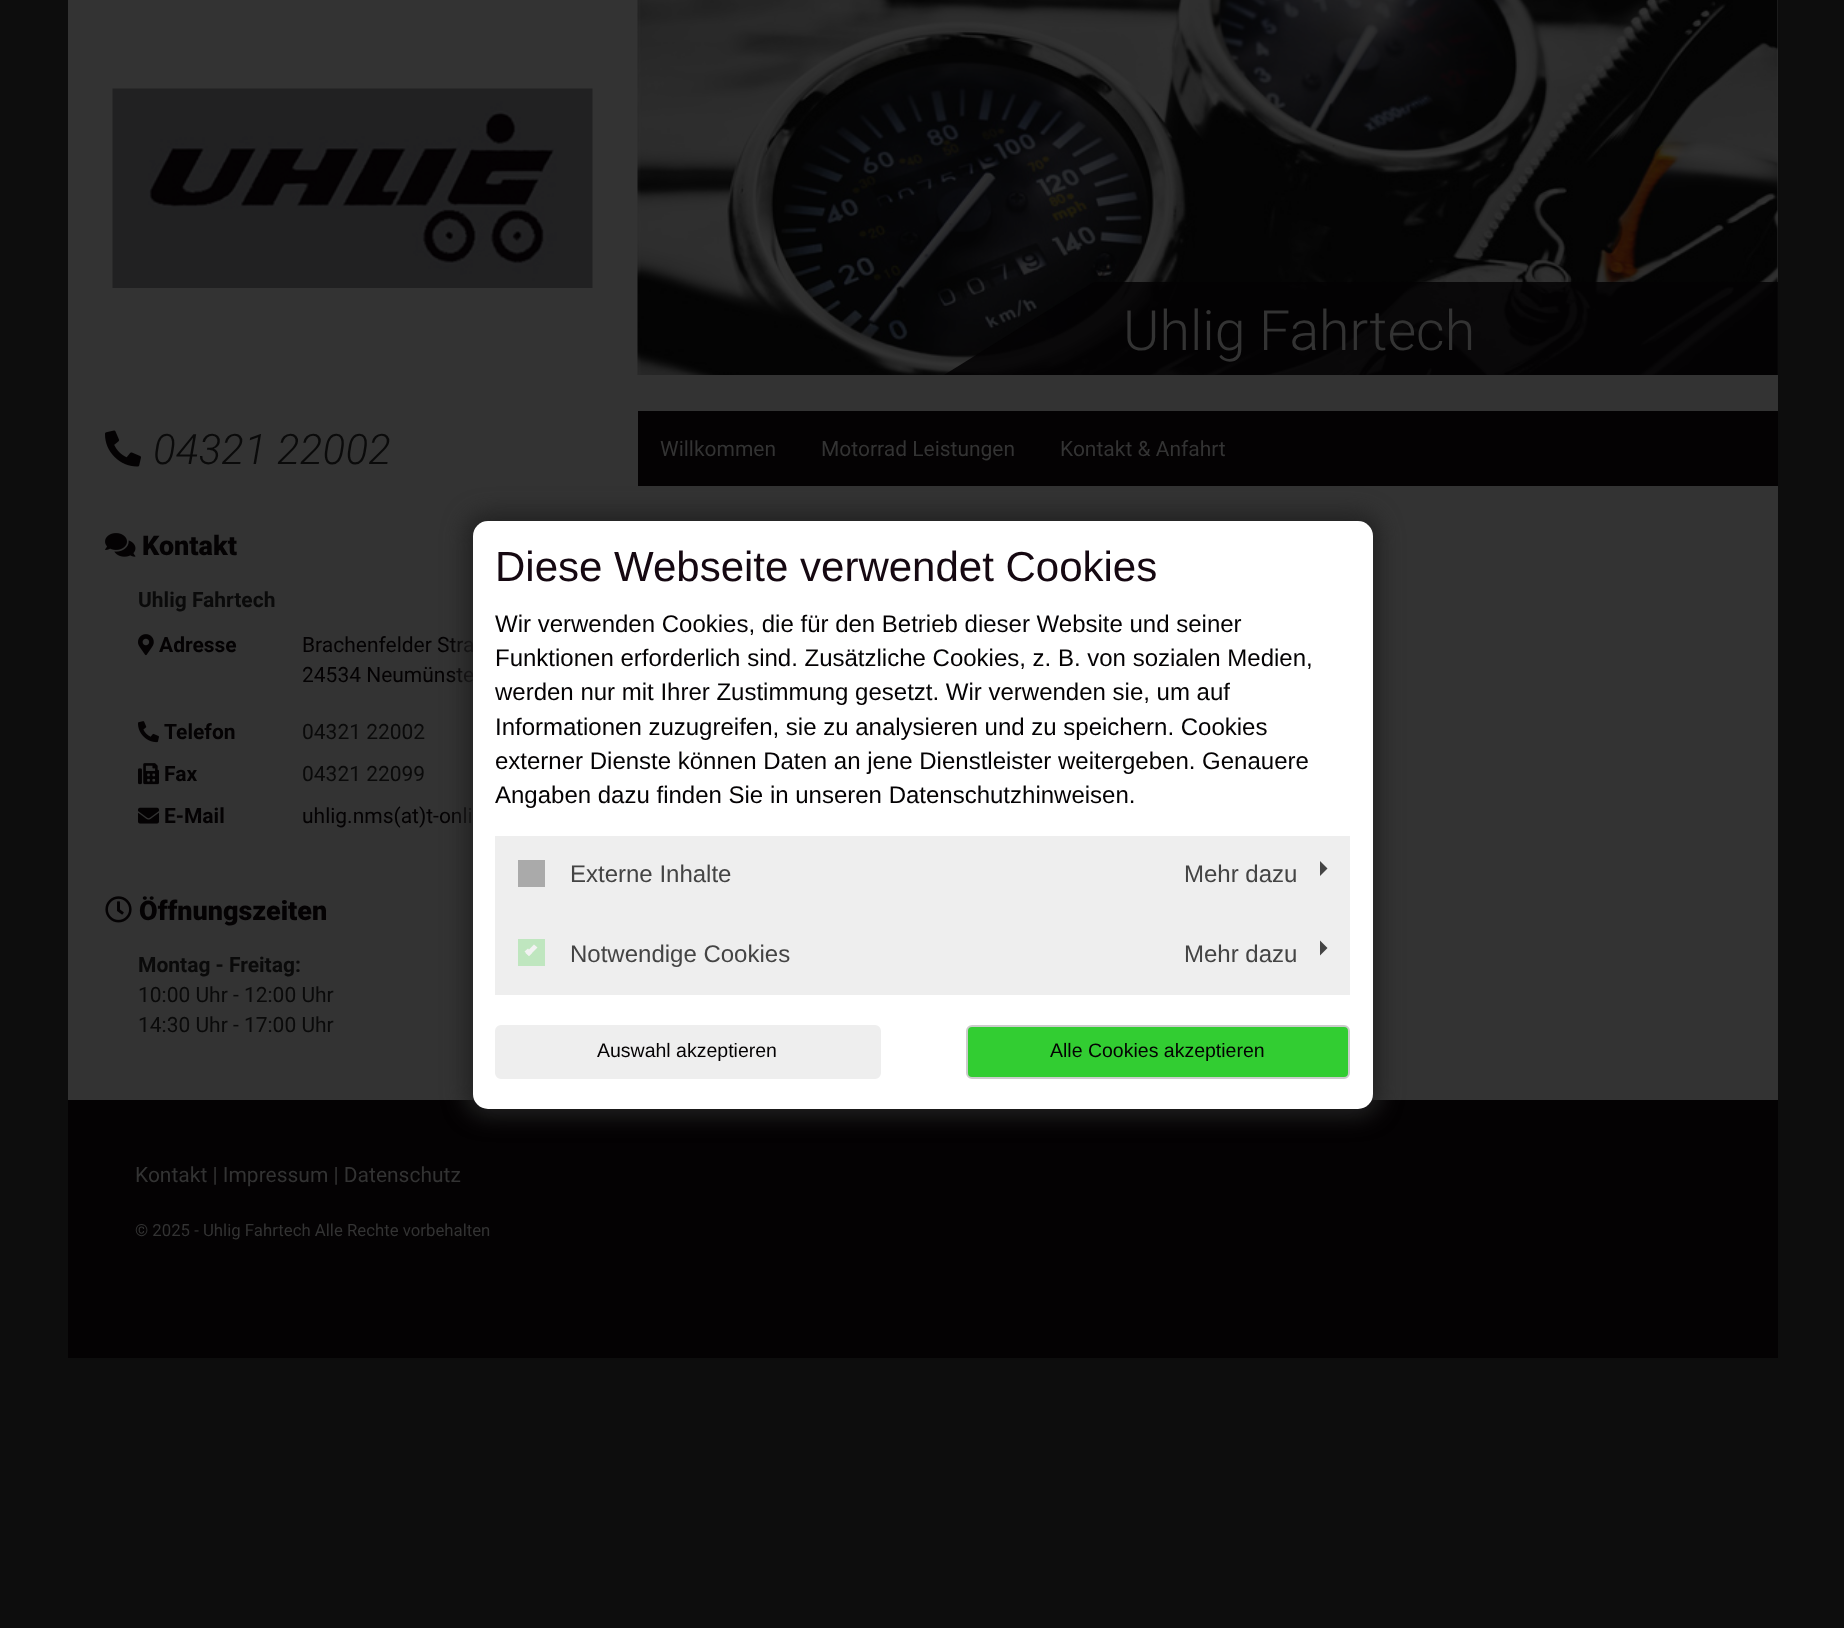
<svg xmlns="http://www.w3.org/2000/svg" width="1844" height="1628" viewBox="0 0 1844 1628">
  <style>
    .t1 { font: 300 55.5px Roboto; fill: #333; }
    .t2 { font: italic 300 42px Roboto; fill: #0a0a0a; }
    .t3 { font: 21px Roboto; fill: #333; }
    .t4 { font: 900 27px Roboto; fill: #040203; }
    .t5 { font: bold 21px Roboto; fill: #0a0a0a; }
    .t6 { font: bold 21px Roboto; fill: #040203; }
    .t7 { font: 21px Roboto; fill: #040203; }
    .t8 { font: 21px Roboto; fill: #0a0a0a; }
    .t9 { font: 16.8px Roboto; fill: #333; }
    .t10 { font: 42px Liberation Sans; fill: #150811; }
    .t11 { font: 24px Liberation Sans; fill: #040203; }
    .t12 { font: 24px Liberation Sans; fill: #444; }
    .t13 { font: 19.5px Liberation Sans; fill: #040203; }
  </style>
  <rect width="100%" height="100%" fill="#0d0d0d"/>
  <rect x="68" y="0" width="1710" height="1100" fill="#333"/>
  <image x="112" y="88" width="481" height="200" href="images/1.png"/>
  <image x="637" y="0" width="1141" height="375" href="images/2.png"/>
  <path d="M1094 375H944L1094 282Z" fill="#040203d9"/>
  <rect x="1094" y="282" width="684" height="93" fill="#040203d9"/>
  <text x="1123" y="350" class="t1">Uhlig Fahrtech</text>
  <image x="105" y="430" width="36" height="37" href="images/3.png"/>
  <text x="153" y="464" class="t2">04321 22002</text>
  <rect x="638" y="411" width="1140" height="75" fill="#040203"/>
  <text x="660" y="456" class="t3">Willkommen</text>
  <text x="821" y="456" class="t3">Motorrad Leistungen</text>
  <text x="1060" y="456" class="t3">Kontakt &amp; Anfahrt</text>
  <image x="105" y="533" width="31" height="24" href="images/4.png"/>
  <text x="142" y="555" class="t4">Kontakt</text>
  <text x="138" y="607" class="t5">Uhlig Fahrtech</text>
  <image x="138" y="634" width="16" height="22" href="images/5.png"/>
  <text x="159" y="652" class="t6">Adresse</text>
  <text x="302" y="652" class="t7">Brachenfelder Stra</text>
  <text x="302" y="682" class="t7">24534 Neumünste</text>
  <image x="138" y="721" width="21" height="22" href="images/6.png"/>
  <text x="164" y="739" class="t6">Telefon</text>
  <text x="302" y="739" class="t8">04321 22002</text>
  <image x="138" y="763" width="21" height="22" href="images/7.png"/>
  <text x="164" y="781" class="t6">Fax</text>
  <text x="302" y="781" class="t8">04321 22099</text>
  <image x="138" y="807" width="21" height="17" href="images/8.png"/>
  <text x="164" y="823" class="t6">E-Mail</text>
  <text x="302" y="823" class="t7">uhlig.nms(at)t-onli</text>
  <image x="105" y="896" width="27" height="27" href="images/9.png"/>
  <text x="139" y="920" class="t4">Öffnungszeiten</text>
  <text x="138" y="972" class="t5">Montag - Freitag:</text>
  <text x="138" y="1002" class="t8">10:00 Uhr - 12:00 Uhr</text>
  <text x="138" y="1032" class="t8">14:30 Uhr - 17:00 Uhr</text>
  <rect x="68" y="1100" width="1710" height="258" fill="#040203"/>
  <text x="135" y="1182" class="t3">Kontakt | Impressum | Datenschutz</text>
  <text x="135" y="1236" class="t9">© 2025 - Uhlig Fahrtech Alle Rechte vorbehalten</text>
  <rect x="465" y="513" width="915" height="603" rx="23" fill="#222" filter="blur(11px)"/>
  <rect x="473" y="521" width="900" height="588" rx="15" fill="#fff"/>
  <text x="495" y="581" class="t10">Diese Webseite verwendet Cookies</text>
  <text x="495" y="632" class="t11">Wir verwenden Cookies, die für den Betrieb dieser Website und seiner</text>
  <text x="495" y="666" class="t11">Funktionen erforderlich sind. Zusätzliche Cookies, z. B. von sozialen Medien,</text>
  <text x="495" y="700" class="t11">werden nur mit Ihrer Zustimmung gesetzt. Wir verwenden sie, um auf</text>
  <text x="495" y="735" class="t11">Informationen zuzugreifen, sie zu analysieren und zu speichern. Cookies</text>
  <text x="495" y="769" class="t11">externer Dienste können Daten an jene Dienstleister weitergeben. Genauere</text>
  <text x="495" y="803" class="t11">Angaben dazu finden Sie in unseren Datenschutzhinweisen.</text>
  <rect x="495" y="836" width="855" height="159" fill="#eee"/>
  <rect x="518" y="860" width="27" height="27" fill="#aaa"/>
  <text x="570" y="882" class="t12">Externe Inhalte</text>
  <text x="1184" y="882" class="t12">Mehr dazu</text>
  <path d="M1320 876V861L1327.5 868.5Z" fill="#444"/>
  <rect x="518" y="939" width="27" height="27" fill="#bfe6bf"/>
  <path d="M534 944.5L537.5 947.5L529 956L525.5 953Z" fill="#f2f2f2"/>
  <path d="M528 948.5L532 953L529 956L524.5 951.5Z" fill="#f2f2f2"/>
  <text x="570" y="962" class="t12">Notwendige Cookies</text>
  <text x="1184" y="962" class="t12">Mehr dazu</text>
  <path d="M1320 955.5V940.5L1327.5 948Z" fill="#444"/>
  <rect x="496" y="1026" width="384" height="52" rx="5" fill="#eee" stroke="#eee" stroke-width="2"/>
  <text x="597" y="1057" class="t13">Auswahl akzeptieren</text>
  <rect x="967" y="1026" width="382" height="52" rx="5" fill="#32cd32" stroke="#ccc" stroke-width="2"/>
  <text x="1050" y="1057" class="t13">Alle Cookies akzeptieren</text>
</svg>
